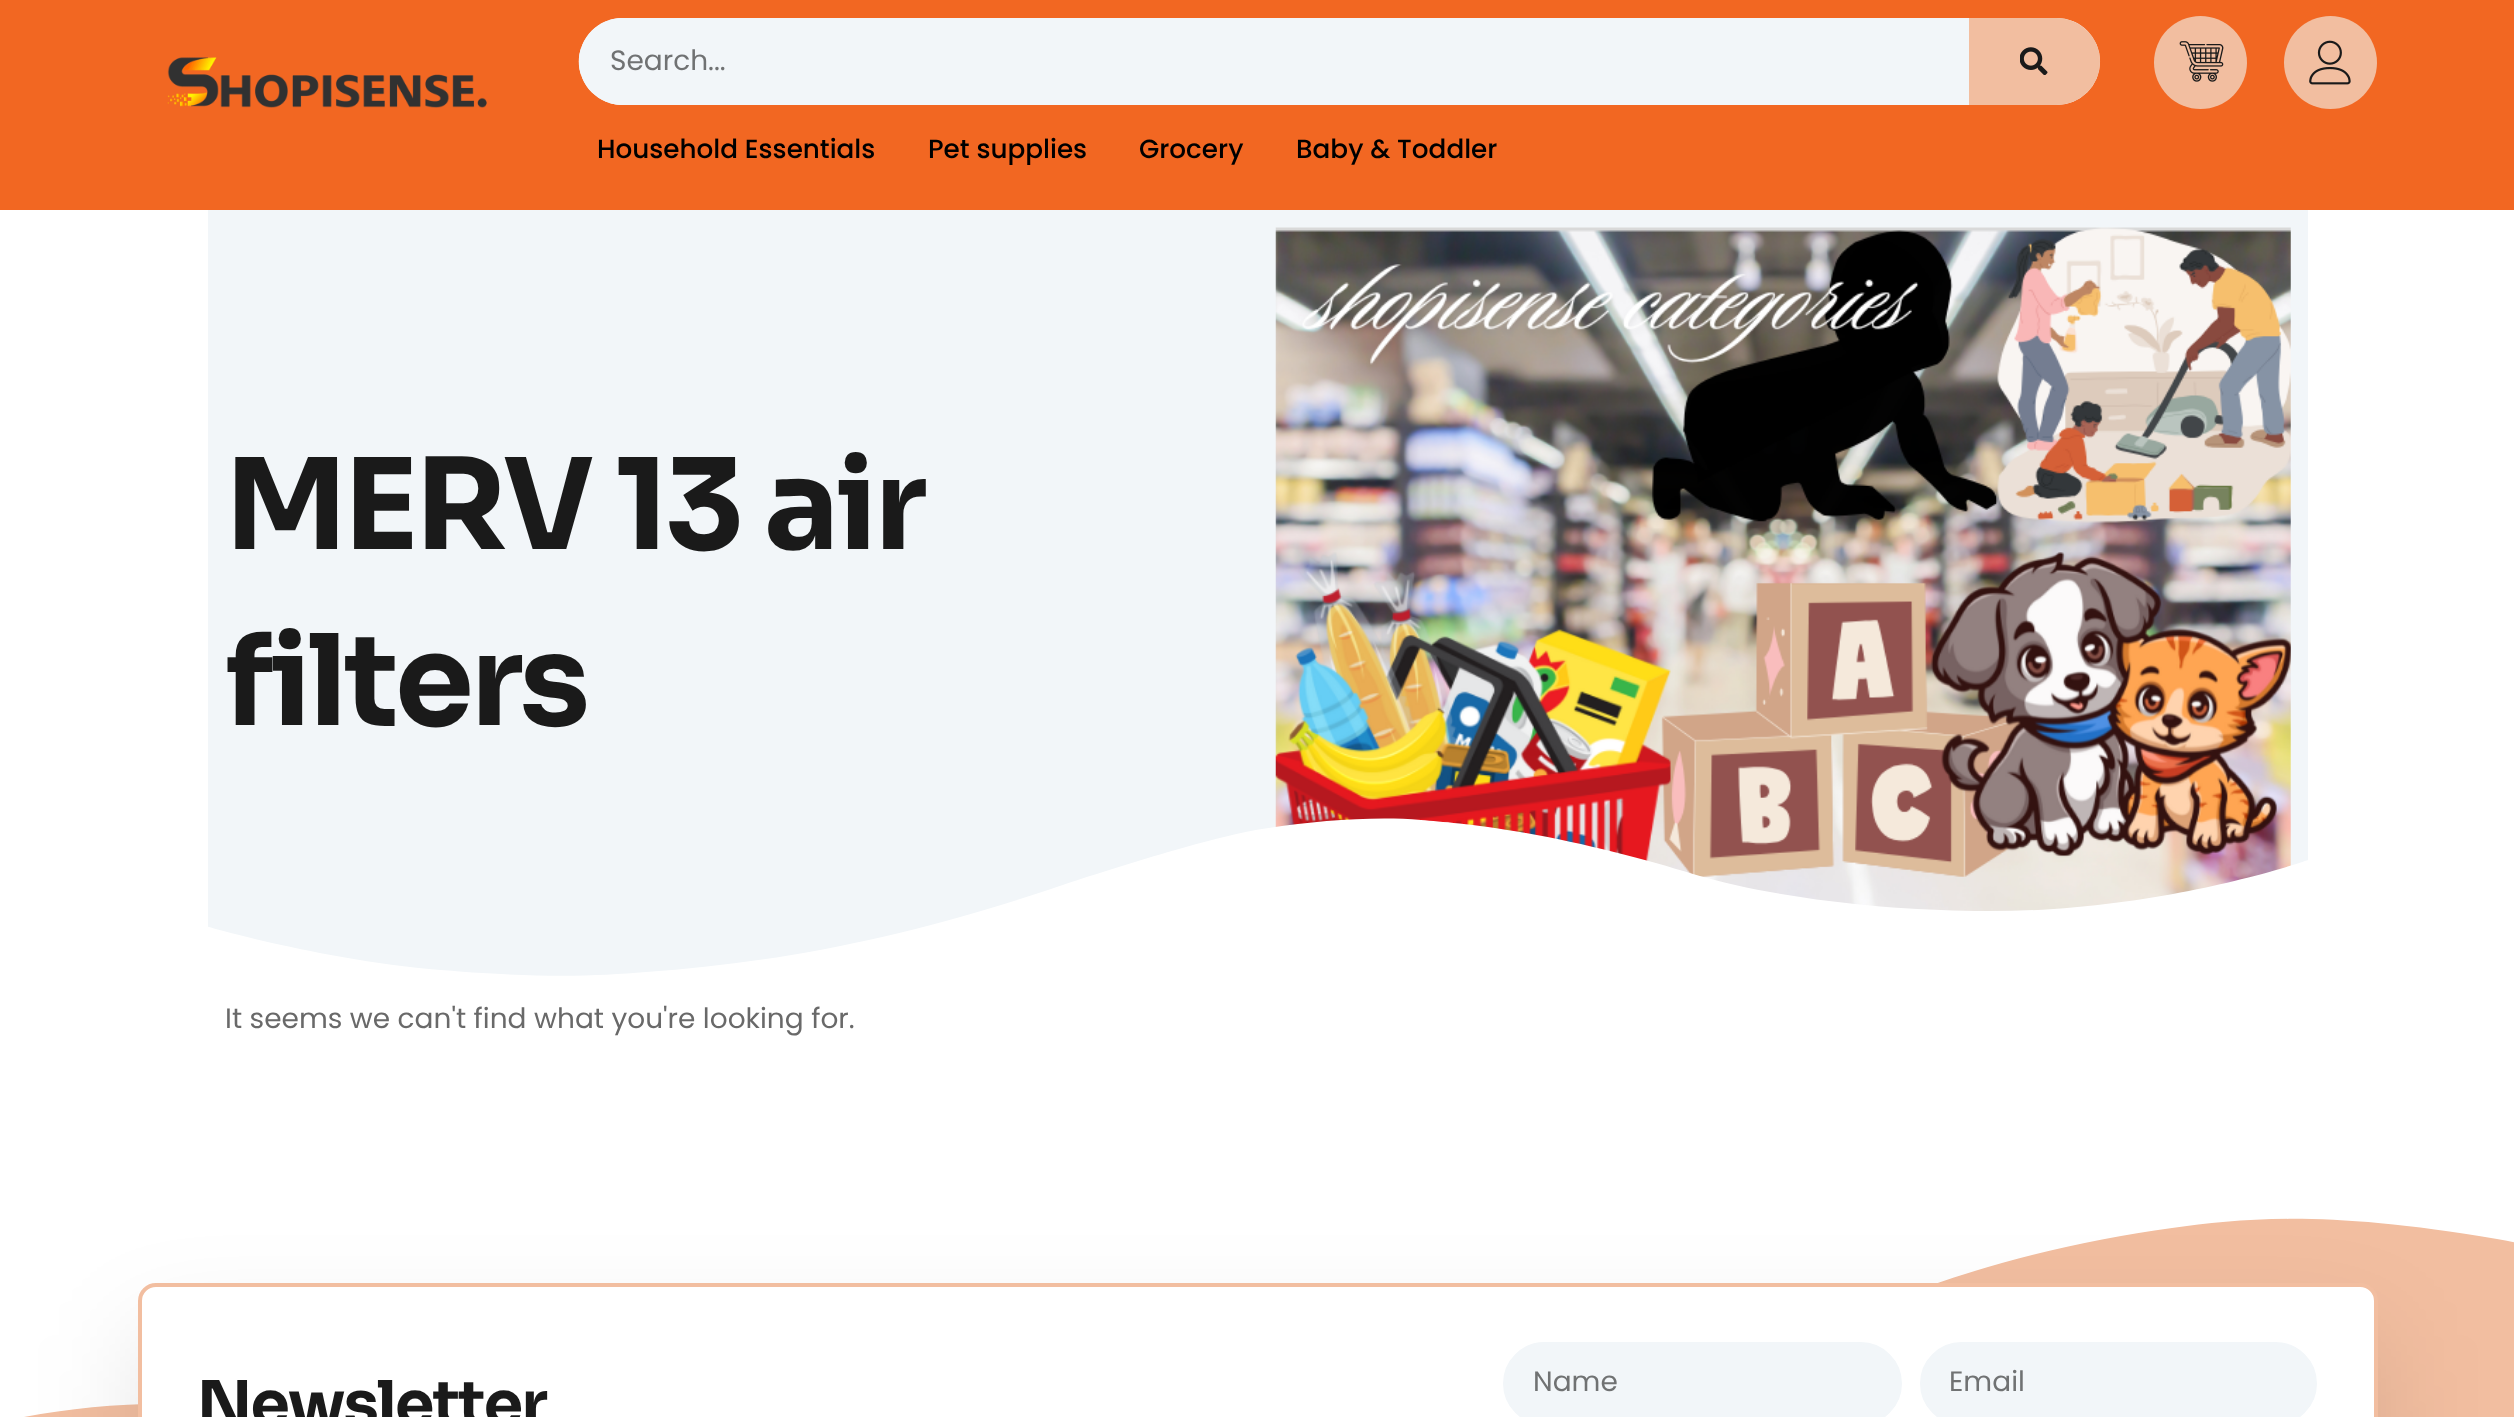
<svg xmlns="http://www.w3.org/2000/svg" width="2514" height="1417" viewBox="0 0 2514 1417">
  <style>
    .t1 { font: 28px Poppins; fill: #707273; }
    .t2 { font: 500 26.25px Poppins; fill: #000; }
    .t3 { font: bold 126px Sora; letter-spacing: -3.5px; fill: #1a1a1a; }
    .t4 { font: 28px Poppins; fill: #696969; }
    .t5 { font: bold 63px Sora; letter-spacing: -1.75px; fill: #1a1a1a; }
  </style>
  <defs>
    <clipPath id="clip1"><rect x="208" y="817" width="2100" height="165"/></clipPath>
    <clipPath id="clip2"><rect x="0" y="1197" width="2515" height="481"/></clipPath>
  </defs>
  <rect width="100%" height="100%" fill="#fff"/>
  <rect x="0" y="0" width="2514" height="210" fill="#f26722"/>
  <image x="167" y="57" width="320" height="51" href="images/1.png"/>
  <rect x="579" y="18" width="1521" height="87" rx="43.5" fill="#f2f6f9"/>
  <path d="M622.5 18H1951C1961 18 1969 26 1969 36V87C1969 97 1961 105 1951 105H622.5C598.5 105 579 85.5 579 61.5C579 37.5 598.5 18 622.5 18Z" fill="#f2f6f9"/>
  <path d="M622 18C618 18 614 19 609 20H1951C1960 20 1967 27 1967 36V87C1967 96 1960 103 1951 103H609C614 104 618 105 622 105H1951C1961 105 1969 97 1969 87V36C1969 26 1961 18 1951 18ZM581 75C578 66 578 57 581 48Z" fill="#f2f6f9" fill-rule="evenodd"/>
  <text x="610" y="70" class="t1">Search...</text>
  <path d="M1969 18H2056.5C2080.5 18 2100 37.5 2100 61.5C2100 85.5 2080.5 105 2056.5 105H1969Z" fill="#f2bea0"/>
  <image x="2020" y="47" width="28" height="28" href="images/2.png"/>
  <circle cx="2200.5" cy="62.5" r="46.5" fill="#f2bea0"/>
  <image x="2179" y="41" width="45" height="41" href="images/3.png"/>
  <circle cx="2330.5" cy="62.5" r="46.5" fill="#f2bea0"/>
  <image x="2309" y="40" width="42" height="45" href="images/4.png"/>
  <text x="597" y="158" class="t2">Household Essentials</text>
  <text x="928" y="158" class="t2">Pet supplies</text>
  <text x="1139" y="158" class="t2">Grocery</text>
  <text x="1296" y="158" class="t2">Baby &amp; Toddler</text>
  <rect x="208" y="210" width="2100" height="766" fill="#f2f6f9"/>
  <text x="225" y="549" class="t3">MERV 13 air</text>
  <text x="225" y="725" class="t3">filters</text>
  <image x="1275" y="227" width="1016" height="685" href="images/5.png"/>
  <g clip-path="url(#clip1)">
    <path d="M646 972C770 963 891 942 1051 889C1113 868 1212 837 1262 829C1312 821 1373 816 1421 820C1442 822 1468 823 1526 833C1583 843 1648 860 1693 874C1780 900 1892 910 1975 911C2156 914 2308 860 2308 860V984H205V926C205 926 314 958 429 969C543 979 596 976 646 972Z" fill="#fff"/>
  </g>
  <text x="225" y="1028" class="t4">It seems we can't find what you're looking for.</text>
  <rect x="24" y="1218" width="2490" height="199" fill="#f2bea0"/>
  <g clip-path="url(#clip2)">
    <path d="M2172 1228C1986 1254 1805 1315 1566 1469C1473 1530 1324 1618 1250 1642C1176 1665 1085 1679 1013 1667C980 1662 941 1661 855 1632C769 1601 672 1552 605 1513C475 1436 307 1407 184 1404C-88 1396-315 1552-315 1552V1195H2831V1362C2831 1362 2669 1269 2497 1239C2326 1210 2246 1218 2172 1228Z" fill="#fff"/>
  </g>
  <rect x="138" y="1335" width="2240" height="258" rx="18" fill="#0000001a" filter="blur(52.5px)"/>
  <rect x="140" y="1285" width="2236" height="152" rx="16" fill="#fff" stroke="#f2bea0" stroke-width="4"/>
  <text x="197" y="1426" class="t5">Newsletter</text>
  <rect x="1504" y="1343" width="397" height="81" rx="40.5" fill="#f2f6f9" stroke="#f2f6f9" stroke-width="2"/>
  <text x="1533" y="1391" class="t1">Name</text>
  <rect x="1921" y="1343" width="395" height="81" rx="40.5" fill="#f2f6f9" stroke="#f2f6f9" stroke-width="2"/>
  <text x="1949" y="1391" class="t1">Email</text>
</svg>
